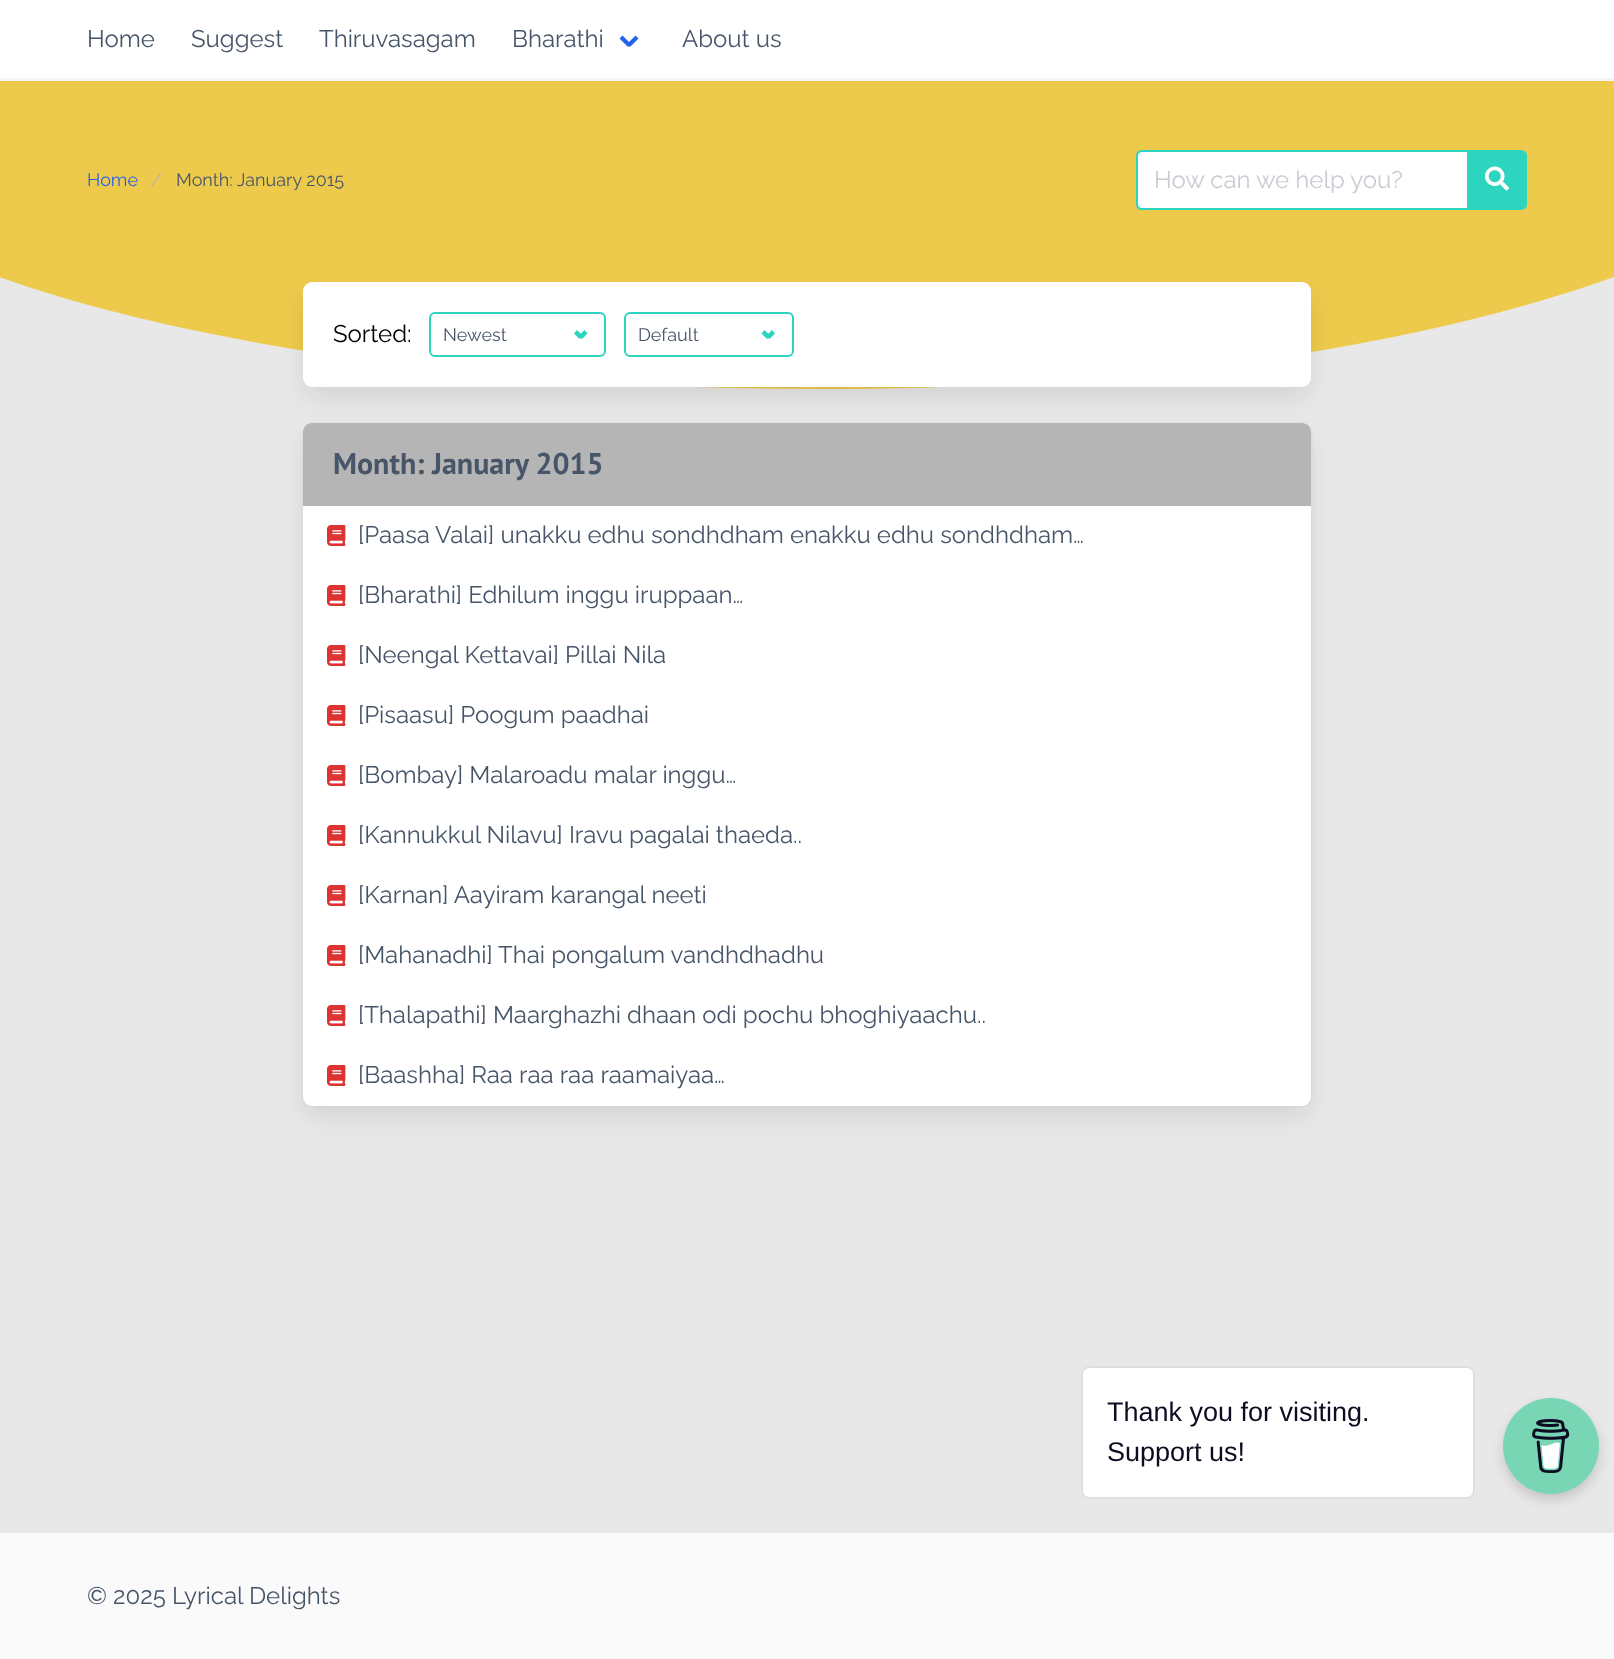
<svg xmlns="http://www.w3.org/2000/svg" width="1614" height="1659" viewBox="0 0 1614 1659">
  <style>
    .t1 { font: 24px Raleway; fill: #475569; }
    .t2 { font: 18px Raleway; fill: #2563eb; }
    .t3 { font: 18px Raleway; fill: #b5b5b5; }
    .t4 { font: 18px Raleway; fill: #475569; }
    .t5 { font: 24px Raleway; fill: #c8ccd2; }
    .t6 { font: 24px Raleway; fill: #000; }
    .t7 { font: bold 30px PT Sans; fill: #475569; }
    .t8 { font: 27px Liberation Sans; fill: #0d0c22; }
  </style>
  <rect width="100%" height="100%" fill="#e8e8e8"/>
  <path d="M-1 277V77H1614V277C1422 346 1145 389 820 389C495 389 191 346-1 277Z" fill="#edca4b"/>
  <rect x="0" y="78" width="1614" height="3" fill="#f5f5f5"/>
  <rect x="0" y="0" width="1614" height="78" fill="#fff"/>
  <text x="87" y="47" class="t1">Home</text>
  <text x="191" y="47" class="t1">Suggest</text>
  <text x="319" y="47" class="t1">Thiruvasagam</text>
  <text x="512" y="47" class="t1">Bharathi</text>
  <path d="M627 44L635.5 35.5L638.5 38.5L630 47Z" fill="#2563eb"/>
  <path d="M619.5 38.5L622.5 35.5L631 44L628 47Z" fill="#2563eb"/>
  <text x="682" y="47" class="t1">About us</text>
  <text x="87" y="186" class="t2">Home</text>
  <text x="151" y="186" class="t3">/</text>
  <text x="176" y="186" class="t4">Month: January 2015</text>
  <path d="M1142 151H1468V209H1142C1139 209 1137 207 1137 204V156C1137 153 1139 151 1142 151Z" fill="#fff" stroke="#2dd4bf" stroke-width="2"/>
  <text x="1154" y="188" class="t5">How can we help you?</text>
  <path d="M1467 150H1521C1524.5 150 1527 152.5 1527 156V204C1527 207.5 1524.5 210 1521 210H1467Z" fill="#2dd4bf"/>
  <image x="1485" y="166" width="24" height="25" href="images/1.png"/>
  <rect x="306" y="297" width="1002" height="99" rx="6" fill="#0a0a0a1a" filter="blur(12px)"/>
  <rect x="303" y="282" width="1008" height="105" rx="9" fill="#fff"/>
  <text x="333" y="342" class="t6">Sorted:</text>
  <rect x="430" y="313" width="175" height="43" rx="5" fill="none" stroke="#2dd4bf" stroke-width="2"/>
  <text x="443" y="341" class="t4">Newest</text>
  <path d="M578.5 336L584.5 330L587.5 333.5L582 339Z" fill="#2dd4bf"/>
  <path d="M574 333.5L577 330L583 336L579.5 339Z" fill="#2dd4bf"/>
  <rect x="625" y="313" width="168" height="43" rx="5" fill="none" stroke="#2dd4bf" stroke-width="2"/>
  <text x="638" y="341" class="t4">Default</text>
  <path d="M766 336L772 330L775 333.5L769.5 339Z" fill="#2dd4bf"/>
  <path d="M761.5 333.5L764.5 330L770.5 336L767 339Z" fill="#2dd4bf"/>
  <rect x="303" y="423" width="1009" height="683" rx="10" fill="none" stroke="#e3e3e3" stroke-width="2"/>
  <rect x="306" y="438" width="1002" height="677" rx="6" fill="#0a0a0a1a" filter="blur(12px)"/>
  <rect x="303" y="423" width="1008" height="683" rx="9" fill="#fff"/>
  <path d="M312 423H1302C1307 423 1311 427 1311 432V506H303V432C303 427 307 423 312 423Z" fill="#b5b5b5"/>
  <text x="333" y="474" class="t7">Month: January 2015</text>
  <image x="327" y="525" width="19" height="21" href="images/2.png"/>
  <text x="358" y="543" class="t1">[Paasa Valai] unakku edhu sondhdham enakku edhu sondhdham…</text>
  <image x="327" y="585" width="19" height="21" href="images/2.png"/>
  <text x="358" y="603" class="t1">[Bharathi] Edhilum inggu iruppaan…</text>
  <image x="327" y="645" width="19" height="21" href="images/2.png"/>
  <text x="358" y="663" class="t1">[Neengal Kettavai] Pillai Nila</text>
  <image x="327" y="705" width="19" height="21" href="images/2.png"/>
  <text x="358" y="723" class="t1">[Pisaasu] Poogum paadhai</text>
  <image x="327" y="765" width="19" height="21" href="images/2.png"/>
  <text x="358" y="783" class="t1">[Bombay] Malaroadu malar inggu…</text>
  <image x="327" y="825" width="19" height="21" href="images/2.png"/>
  <text x="358" y="843" class="t1">[Kannukkul Nilavu] Iravu pagalai thaeda..</text>
  <image x="327" y="885" width="19" height="21" href="images/2.png"/>
  <text x="358" y="903" class="t1">[Karnan] Aayiram karangal neeti</text>
  <image x="327" y="945" width="19" height="21" href="images/2.png"/>
  <text x="358" y="963" class="t1">[Mahanadhi] Thai pongalum vandhdhadhu</text>
  <image x="327" y="1005" width="19" height="21" href="images/2.png"/>
  <text x="358" y="1023" class="t1">[Thalapathi] Maarghazhi dhaan odi pochu bhoghiyaachu..</text>
  <image x="327" y="1065" width="19" height="21" href="images/2.png"/>
  <text x="358" y="1083" class="t1">[Baashha] Raa raa raa raamaiyaa…</text>
  <rect x="1083" y="1368" width="390" height="129" rx="6" fill="#00000026" filter="blur(1.5px)"/>
  <rect x="1083" y="1368" width="390" height="129" rx="6" fill="#fff"/>
  <text x="1107" y="1421" class="t8">Thank you for visiting.</text>
  <text x="1107" y="1461" class="t8">Support us!</text>
  <rect x="1503" y="1404" width="96" height="96" rx="48" fill="#00000026" filter="blur(6px)"/>
  <circle cx="1551" cy="1446" r="48" fill="#79d6b5"/>
  <image x="1532" y="1419" width="38" height="54" href="images/3.png"/>
  <rect x="0" y="1533" width="1614" height="126" fill="#fafafa"/>
  <text x="87" y="1604" class="t1">© 2025 Lyrical Delights</text>
</svg>
